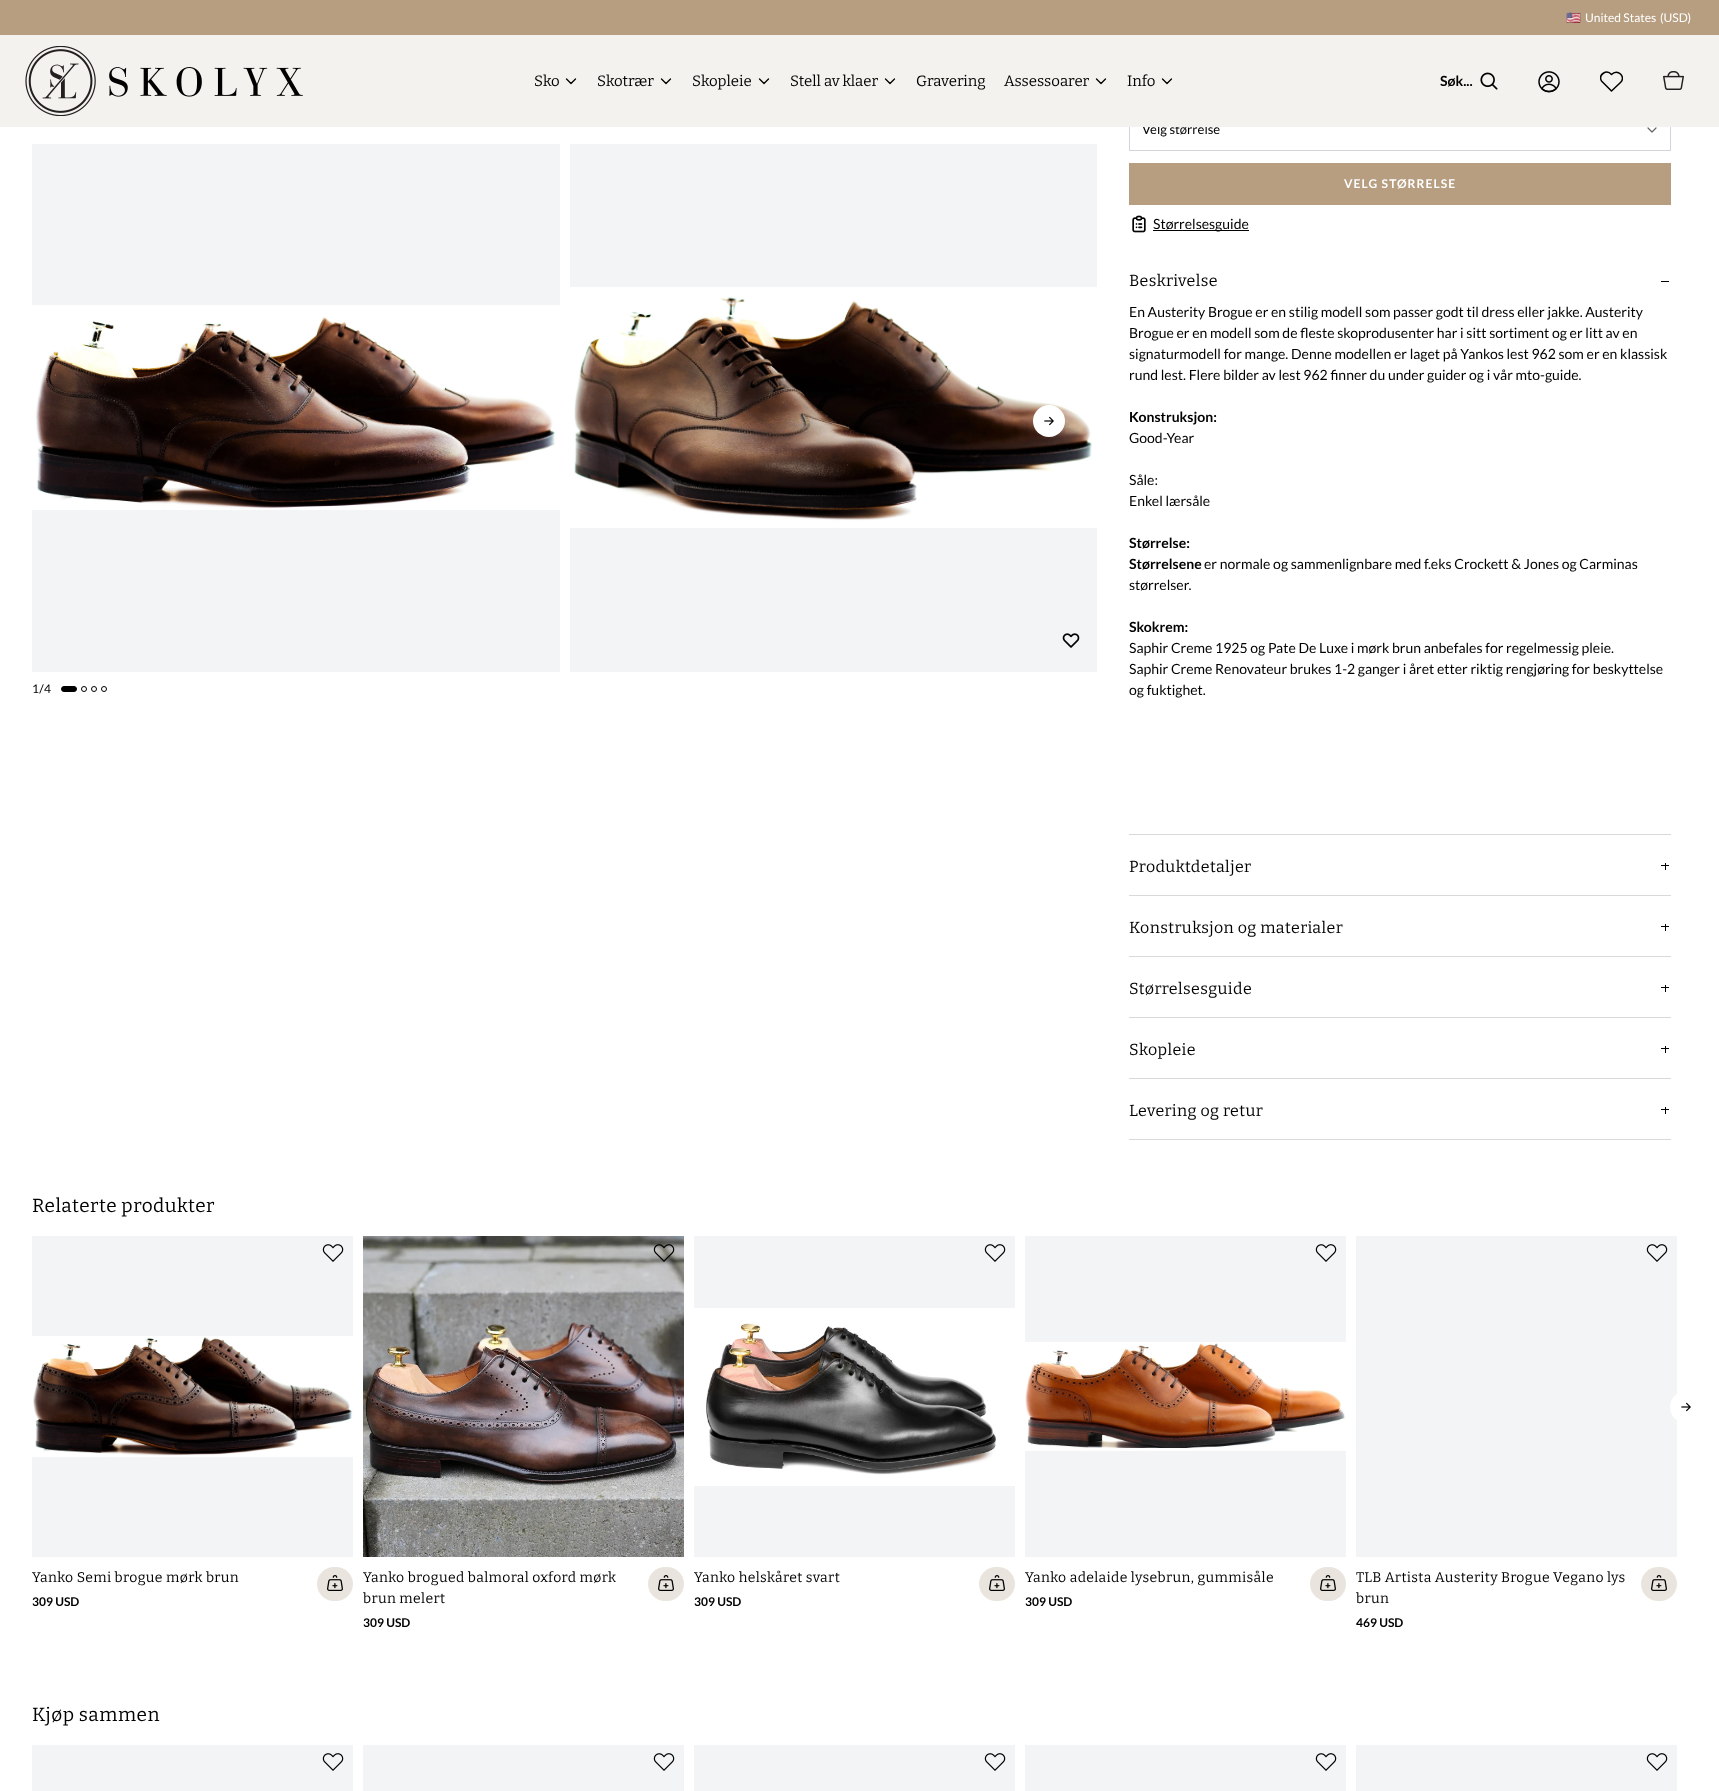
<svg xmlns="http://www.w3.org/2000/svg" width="1719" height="1791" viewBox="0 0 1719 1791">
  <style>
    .t1 { font: 13px Lato; fill: #000; }
    .t2 { font: 12px Noto Color Emoji; fill: #fff; }
    .t3 { font: 12px Lato; fill: #fff; }
    .t4 { font: 15px Bitter; fill: #000; }
    .t5 { font: bold 14px Lato; fill: #000; }
    .t6 { font: 12px Lato; letter-spacing: -1px; fill: #000; }
    .t7 { font: bold 12px Lato; letter-spacing: 1.1px; fill: #fff; }
    .t8 { font: 14px Lato; fill: #000; }
    .t9 { font: 16px Bitter; letter-spacing: 0.4px; fill: #000; }
    .t10 { font: 19px Bitter; letter-spacing: 0.5px; fill: #000; }
    .t11 { font: 14px Bitter; letter-spacing: 0.35px; fill: #000; }
    .t12 { font: bold 12px Lato; fill: #000; }
  </style>
  <defs>
    <clipPath id="clip1"><path d="M1600 70H1623V93H1600Z"/></clipPath>
  </defs>
  <rect width="100%" height="100%" fill="#fff"/>
  <rect x="1129.5" y="109.5" width="541" height="41" fill="none" stroke="#d1d5db"/>
  <text x="1142" y="134" class="t1">Velg størrelse</text>
  <rect x="0" y="35" width="1719" height="92" fill="#f4f2ef"/>
  <rect x="0" y="0" width="1719" height="35" fill="#b79e80"/>
  <text x="1566" y="22" class="t2">🇺🇸</text>
  <text x="1585" y="22" class="t3">United States</text>
  <text x="1660" y="22" class="t3">(USD)</text>
  <image x="25" y="46" width="278" height="70" href="images/1.png"/>
  <text x="534" y="86" class="t4">Sko</text>
  <path d="M575.5 79L571 83.5L566.5 79" fill="none" stroke="#000" stroke-width="1.3" stroke-linecap="round" stroke-linejoin="round"/>
  <text x="597" y="86" class="t4">Skotrær</text>
  <path d="M670.5 79L666 83.5L661.5 79" fill="none" stroke="#000" stroke-width="1.3" stroke-linecap="round" stroke-linejoin="round"/>
  <text x="692" y="86" class="t4">Skopleie</text>
  <path d="M768.5 79L764 83.5L759.5 79" fill="none" stroke="#000" stroke-width="1.3" stroke-linecap="round" stroke-linejoin="round"/>
  <text x="790" y="86" class="t4">Stell av klaer</text>
  <path d="M894.5 79L890 83.5L885.5 79" fill="none" stroke="#000" stroke-width="1.3" stroke-linecap="round" stroke-linejoin="round"/>
  <text x="916" y="86" class="t4">Gravering</text>
  <text x="1004" y="86" class="t4">Assessoarer</text>
  <path d="M1105.5 79L1101 83.5L1096.5 79" fill="none" stroke="#000" stroke-width="1.3" stroke-linecap="round" stroke-linejoin="round"/>
  <text x="1127" y="86" class="t4">Info</text>
  <path d="M1171.5 79L1167 83.5L1162.5 79" fill="none" stroke="#000" stroke-width="1.3" stroke-linecap="round" stroke-linejoin="round"/>
  <text x="1440" y="86" class="t5">Søk...</text>
  <image x="1480" y="72" width="18" height="18" href="images/2.png"/>
  <image x="1538" y="71" width="22" height="22" href="images/3.png"/>
  <g clip-path="url(#clip1)">
    <path d="M1620.5 82.5L1611.5 91L1601.5 81C1598 74.5 1606.5 69 1611.5 74.5C1617.5 68 1626.5 77 1620.5 82.5Z" fill="none" stroke="#000" stroke-width="1.5" stroke-linejoin="round"/>
  </g>
  <image x="1663" y="71" width="21" height="19" href="images/4.png"/>
  <rect x="570" y="144" width="527" height="528" fill="#f3f4f6"/>
  <image x="1062" y="633" width="18" height="15" href="images/5.png"/>
  <rect x="32" y="144" width="528" height="528" fill="#f3f4f6"/>
  <image x="32" y="305" width="528" height="205" href="images/6.png"/>
  <image x="570" y="287" width="527" height="241" href="images/7.png"/>
  <circle cx="1049" cy="421" r="16" fill="#fff"/>
  <image x="1044" y="416" width="10" height="10" href="images/8.png"/>
  <text x="32" y="693" class="t6">1 / 4</text>
  <rect x="61.5" y="686.5" width="15" height="5" rx="2.5" fill="#000" stroke="#000"/>
  <circle cx="84" cy="689" r="2.5" fill="none" stroke="#000"/>
  <circle cx="94" cy="689" r="2.5" fill="none" stroke="#000"/>
  <circle cx="104" cy="689" r="2.5" fill="none" stroke="#000"/>
  <path d="M1656 128L1652 132L1648 128" fill="none" stroke="#666" stroke-width="1.2" stroke-linecap="round" stroke-linejoin="round"/>
  <rect x="1129" y="163" width="542" height="42" fill="#b79e80"/>
  <text x="1344" y="188" class="t7">VELG STØRRELSE</text>
  <image x="1132" y="215" width="14" height="18" href="images/9.png"/>
  <rect x="1153" y="230" width="96" height="1" fill="#000"/>
  <text x="1153" y="229" class="t8">Størrelsesguide</text>
  <rect x="1129" y="834" width="542" height="1" fill="#d9d9d9"/>
  <text x="1129" y="286" class="t9">Beskrivelse</text>
  <rect x="1661" y="281" width="8" height="1" fill="#000"/>
  <text x="1129" y="317" class="t8">En Austerity Brogue er en stilig modell som passer godt til dress eller jakke. Austerity</text>
  <text x="1129" y="338" class="t8">Brogue er en modell som de fleste skoprodusenter har i sitt sortiment og er litt av en</text>
  <text x="1129" y="359" class="t8">signaturmodell for mange. Denne modellen er laget på Yankos lest 962 som er en klassisk</text>
  <text x="1129" y="380" class="t8">rund lest. Flere bilder av lest 962 finner du under guider og i vår mto-guide.</text>
  <text x="1129" y="422" class="t5">Konstruksjon:</text>
  <text x="1129" y="443" class="t8">Good-Year</text>
  <text x="1129" y="485" class="t8">Såle:</text>
  <text x="1129" y="506" class="t8">Enkel lærsåle</text>
  <text x="1129" y="548" class="t5">Størrelse:</text>
  <text x="1129" y="569" class="t5">Størrelsene</text>
  <text x="1204" y="569" class="t8">er normale og sammenlignbare med f.eks Crockett &amp; Jones og Carminas</text>
  <text x="1129" y="590" class="t8">størrelser.</text>
  <text x="1129" y="632" class="t5">Skokrem:</text>
  <text x="1129" y="653" class="t8">Saphir Creme 1925 og Pate De Luxe i mørk brun anbefales for regelmessig pleie.</text>
  <text x="1129" y="674" class="t8">Saphir Creme Renovateur brukes 1-2 ganger i året etter riktig rengjøring for beskyttelse</text>
  <text x="1129" y="695" class="t8">og fuktighet.</text>
  <rect x="1129" y="895" width="542" height="1" fill="#d9d9d9"/>
  <text x="1129" y="872" class="t9">Produktdetaljer</text>
  <rect x="1665" y="863" width="1" height="7" fill="#000"/>
  <rect x="1661" y="865" width="8" height="1" fill="#000"/>
  <rect x="1129" y="956" width="542" height="1" fill="#d9d9d9"/>
  <text x="1129" y="933" class="t9">Konstruksjon og materialer</text>
  <rect x="1665" y="924" width="1" height="7" fill="#000"/>
  <rect x="1661" y="926" width="8" height="1" fill="#000"/>
  <rect x="1129" y="1017" width="542" height="1" fill="#d9d9d9"/>
  <text x="1129" y="994" class="t9">Størrelsesguide</text>
  <rect x="1665" y="985" width="1" height="7" fill="#000"/>
  <rect x="1661" y="987" width="8" height="1" fill="#000"/>
  <rect x="1129" y="1078" width="542" height="1" fill="#d9d9d9"/>
  <text x="1129" y="1055" class="t9">Skopleie</text>
  <rect x="1665" y="1046" width="1" height="7" fill="#000"/>
  <rect x="1661" y="1048" width="8" height="1" fill="#000"/>
  <rect x="1129" y="1139" width="542" height="1" fill="#d9d9d9"/>
  <text x="1129" y="1116" class="t9">Levering og retur</text>
  <rect x="1665" y="1107" width="1" height="7" fill="#000"/>
  <rect x="1661" y="1109" width="8" height="1" fill="#000"/>
  <text x="32" y="1212" class="t10">Relaterte produkter</text>
  <rect x="1356" y="1236" width="321" height="321" fill="#f3f4f6"/>
  <circle cx="1686" cy="1407" r="16" fill="#fff"/>
  <image x="1681" y="1402" width="10" height="10" href="images/8.png"/>
  <rect x="32" y="1236" width="321" height="321" fill="#f3f4f6"/>
  <image x="322" y="1244" width="22" height="18" href="images/10.png"/>
  <image x="32" y="1336" width="321" height="121" href="images/11.png"/>
  <text x="32" y="1582" class="t11">Yanko Semi brogue mørk brun</text>
  <rect x="317" y="1567" width="36" height="34" rx="17" fill="#e9e5de"/>
  <image x="327" y="1575" width="16" height="16" href="images/12.png"/>
  <text x="32" y="1606" class="t12">309 USD</text>
  <image x="363" y="1236" width="321" height="321" href="images/13.png"/>
  <image x="653" y="1244" width="22" height="18" href="images/14.png"/>
  <text x="363" y="1582" class="t11">Yanko brogued balmoral oxford mørk</text>
  <text x="363" y="1603" class="t11">brun melert</text>
  <rect x="648" y="1567" width="36" height="34" rx="17" fill="#e9e5de"/>
  <image x="658" y="1575" width="16" height="16" href="images/12.png"/>
  <text x="363" y="1627" class="t12">309 USD</text>
  <rect x="694" y="1236" width="321" height="321" fill="#f3f4f6"/>
  <image x="984" y="1244" width="22" height="18" href="images/10.png"/>
  <image x="694" y="1308" width="321" height="178" href="images/15.png"/>
  <text x="694" y="1582" class="t11">Yanko helskåret svart</text>
  <rect x="979" y="1567" width="36" height="34" rx="17" fill="#e9e5de"/>
  <image x="989" y="1575" width="16" height="16" href="images/12.png"/>
  <text x="694" y="1606" class="t12">309 USD</text>
  <rect x="1025" y="1236" width="321" height="321" fill="#f3f4f6"/>
  <image x="1315" y="1244" width="22" height="18" href="images/10.png"/>
  <image x="1025" y="1342" width="321" height="109" href="images/16.png"/>
  <text x="1025" y="1582" class="t11">Yanko adelaide lysebrun, gummisåle</text>
  <rect x="1310" y="1567" width="36" height="34" rx="17" fill="#e9e5de"/>
  <image x="1320" y="1575" width="16" height="16" href="images/12.png"/>
  <text x="1025" y="1606" class="t12">309 USD</text>
  <image x="1646" y="1244" width="22" height="18" href="images/10.png"/>
  <text x="1356" y="1582" class="t11">TLB Artista Austerity Brogue Vegano lys</text>
  <text x="1356" y="1603" class="t11">brun</text>
  <rect x="1641" y="1567" width="36" height="34" rx="17" fill="#e9e5de"/>
  <image x="1651" y="1575" width="16" height="16" href="images/12.png"/>
  <text x="1356" y="1627" class="t12">469 USD</text>
  <text x="32" y="1721" class="t10">Kjøp sammen</text>
  <rect x="32" y="1745" width="321" height="46" fill="#f3f4f6"/>
  <image x="322" y="1753" width="22" height="18" href="images/10.png"/>
  <rect x="363" y="1745" width="321" height="46" fill="#f3f4f6"/>
  <image x="653" y="1753" width="22" height="18" href="images/10.png"/>
  <rect x="694" y="1745" width="321" height="46" fill="#f3f4f6"/>
  <image x="984" y="1753" width="22" height="18" href="images/10.png"/>
  <rect x="1025" y="1745" width="321" height="46" fill="#f3f4f6"/>
  <image x="1315" y="1753" width="22" height="18" href="images/10.png"/>
  <rect x="1356" y="1745" width="321" height="46" fill="#f3f4f6"/>
  <image x="1646" y="1753" width="22" height="18" href="images/10.png"/>
</svg>
